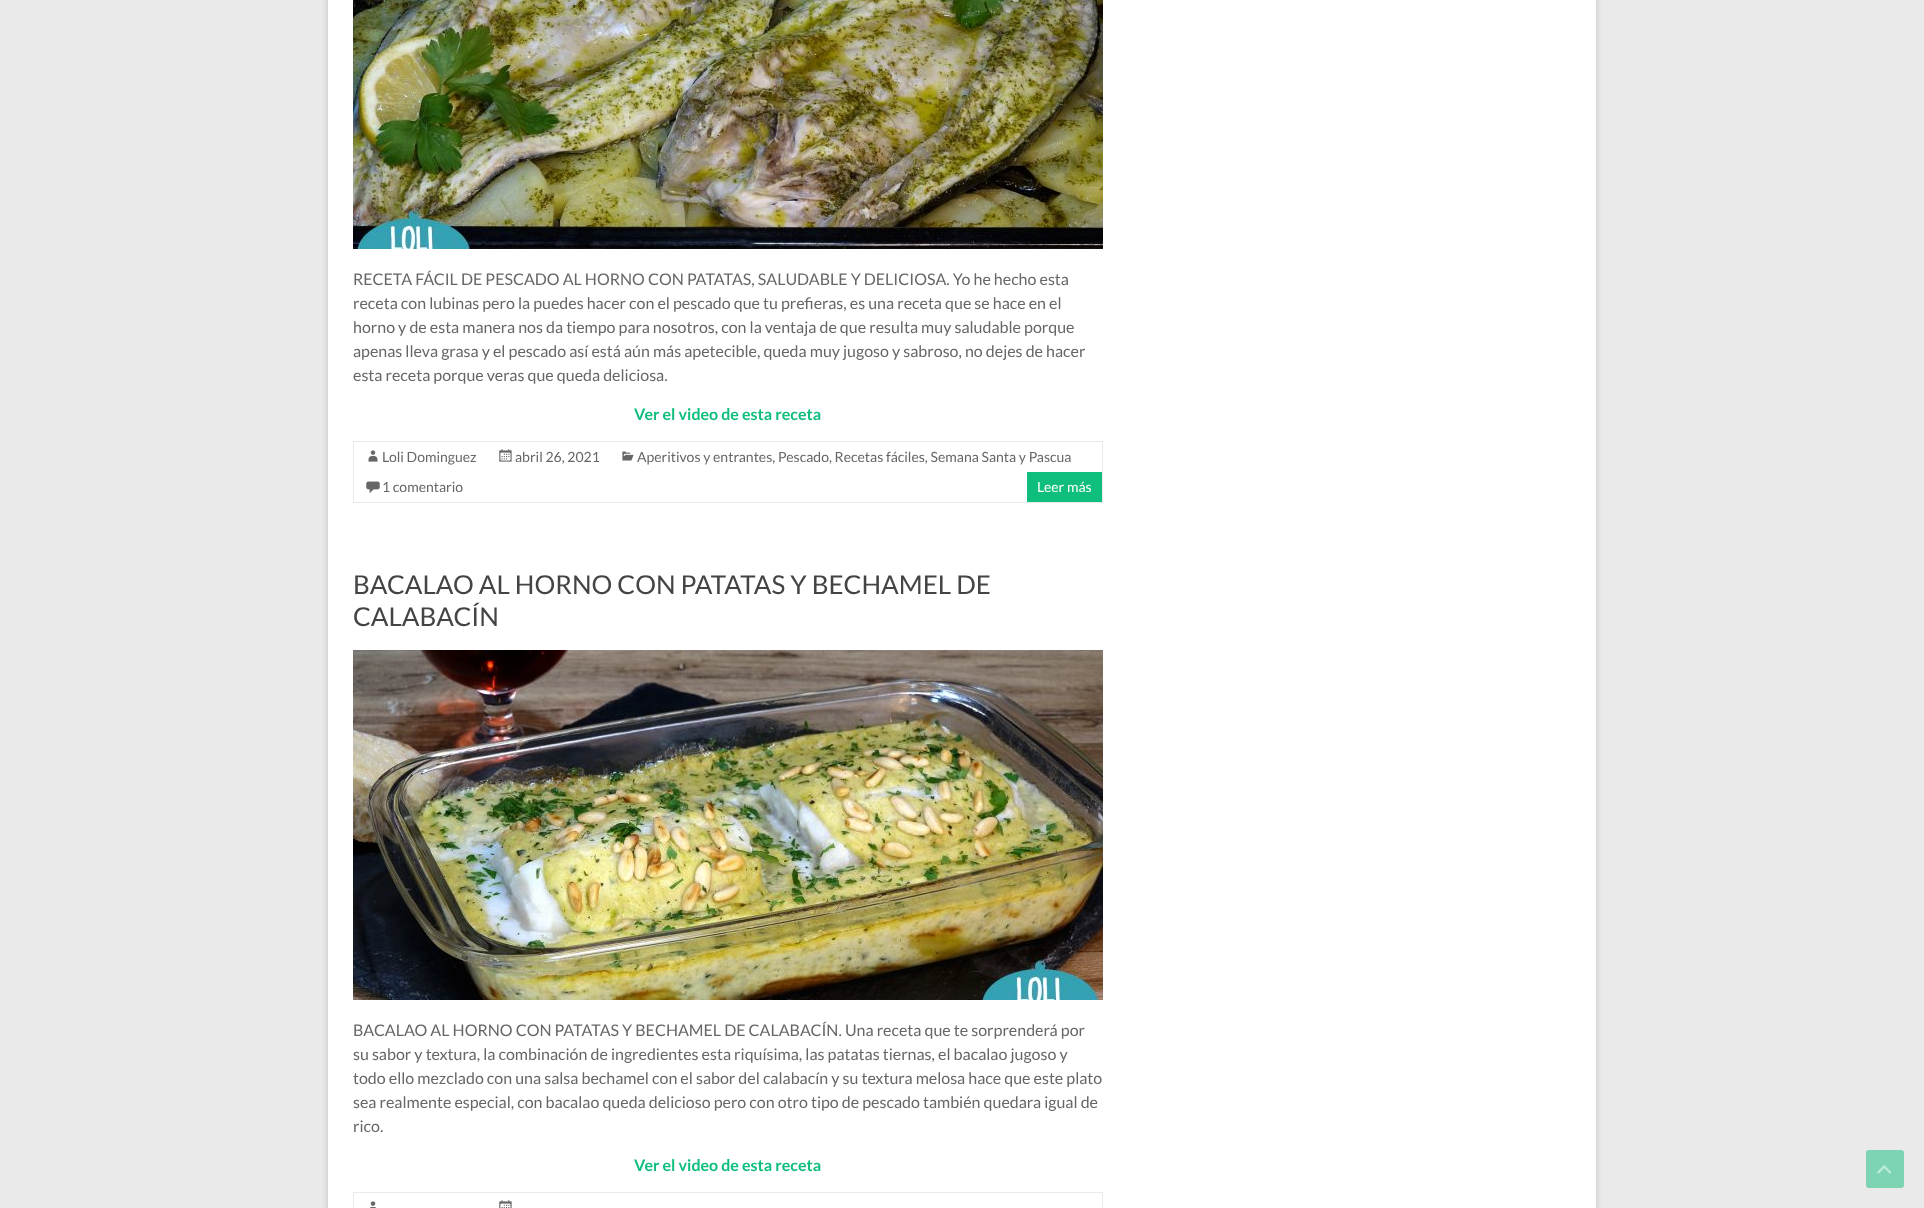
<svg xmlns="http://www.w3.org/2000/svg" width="1924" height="1208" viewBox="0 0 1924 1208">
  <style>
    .t1 { font: 16px Lato; fill: #666; }
    .t2 { font: bold 16px Lato; fill: #0fbe7c; }
    .t3 { font: 14px Lato; fill: #666; }
    .t4 { font: 14px Lato; fill: #fff; }
    .t5 { font: 26px Lato; fill: #444; }
  </style>
  <rect width="100%" height="100%" fill="#eaeaea"/>
  <rect x="328" y="-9" width="1268" height="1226" fill="#6464644d" filter="blur(3px)"/>
  <rect x="328" y="0" width="1268" height="1208" fill="#fff"/>
  <image x="353" y="0" width="750" height="249" href="images/1.png"/>
  <text x="353" y="285" class="t1">RECETA FÁCIL DE PESCADO AL HORNO CON PATATAS, SALUDABLE Y DELICIOSA. Yo he hecho esta</text>
  <text x="353" y="309" class="t1">receta con lubinas pero la puedes hacer con el pescado que tu prefieras, es una receta que se hace en el</text>
  <text x="353" y="333" class="t1">horno y de esta manera nos da tiempo para nosotros, con la ventaja de que resulta muy saludable porque</text>
  <text x="353" y="357" class="t1">apenas lleva grasa y el pescado así está aún más apetecible, queda muy jugoso y sabroso, no dejes de hacer</text>
  <text x="353" y="381" class="t1">esta receta porque veras que queda deliciosa.</text>
  <text x="634" y="420" class="t2">Ver el video de esta receta</text>
  <rect x="353.5" y="441.5" width="749" height="61" fill="none" stroke="#eaeaea"/>
  <image x="368" y="450" width="10" height="12" href="images/2.png"/>
  <text x="382" y="462" class="t3">Loli Dominguez</text>
  <image x="499" y="449" width="13" height="13" href="images/3.png"/>
  <text x="515" y="462" class="t3">abril 26, 2021</text>
  <image x="622" y="451" width="12" height="10" href="images/4.png"/>
  <text x="637" y="462" class="t3">Aperitivos y entrantes, Pescado, Recetas fáciles, Semana Santa y Pascua</text>
  <image x="366" y="481" width="14" height="13" href="images/5.png"/>
  <text x="382" y="492" class="t3">1 comentario</text>
  <rect x="1027" y="472" width="75" height="30" fill="#0fbe7c"/>
  <text x="1037" y="492" class="t4">Leer más</text>
  <text x="353" y="594" class="t5">BACALAO AL HORNO CON PATATAS Y BECHAMEL DE</text>
  <text x="353" y="626" class="t5">CALABACÍN</text>
  <image x="353" y="650" width="750" height="350" href="images/6.png"/>
  <text x="353" y="1036" class="t1">BACALAO AL HORNO CON PATATAS Y BECHAMEL DE CALABACÍN. Una receta que te sorprenderá por</text>
  <text x="353" y="1060" class="t1">su sabor y textura, la combinación de ingredientes esta riquísima, las patatas tiernas, el bacalao jugoso y</text>
  <text x="353" y="1084" class="t1">todo ello mezclado con una salsa bechamel con el sabor del calabacín y su textura melosa hace que este plato</text>
  <text x="353" y="1108" class="t1">sea realmente especial, con bacalao queda delicioso pero con otro tipo de pescado también quedara igual de</text>
  <text x="353" y="1132" class="t1">rico.</text>
  <text x="634" y="1171" class="t2">Ver el video de esta receta</text>
  <rect x="353.5" y="1192.5" width="749" height="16" fill="none" stroke="#eaeaea"/>
  <image x="369" y="1201" width="8" height="7" href="images/7.png"/>
  <image x="499" y="1200" width="13" height="8" href="images/8.png"/>
  <rect x="1866" y="1150" width="38" height="38" rx="3" fill="#7dd4b3"/>
  <image x="1877" y="1165" width="15" height="9" href="images/9.png"/>
</svg>
